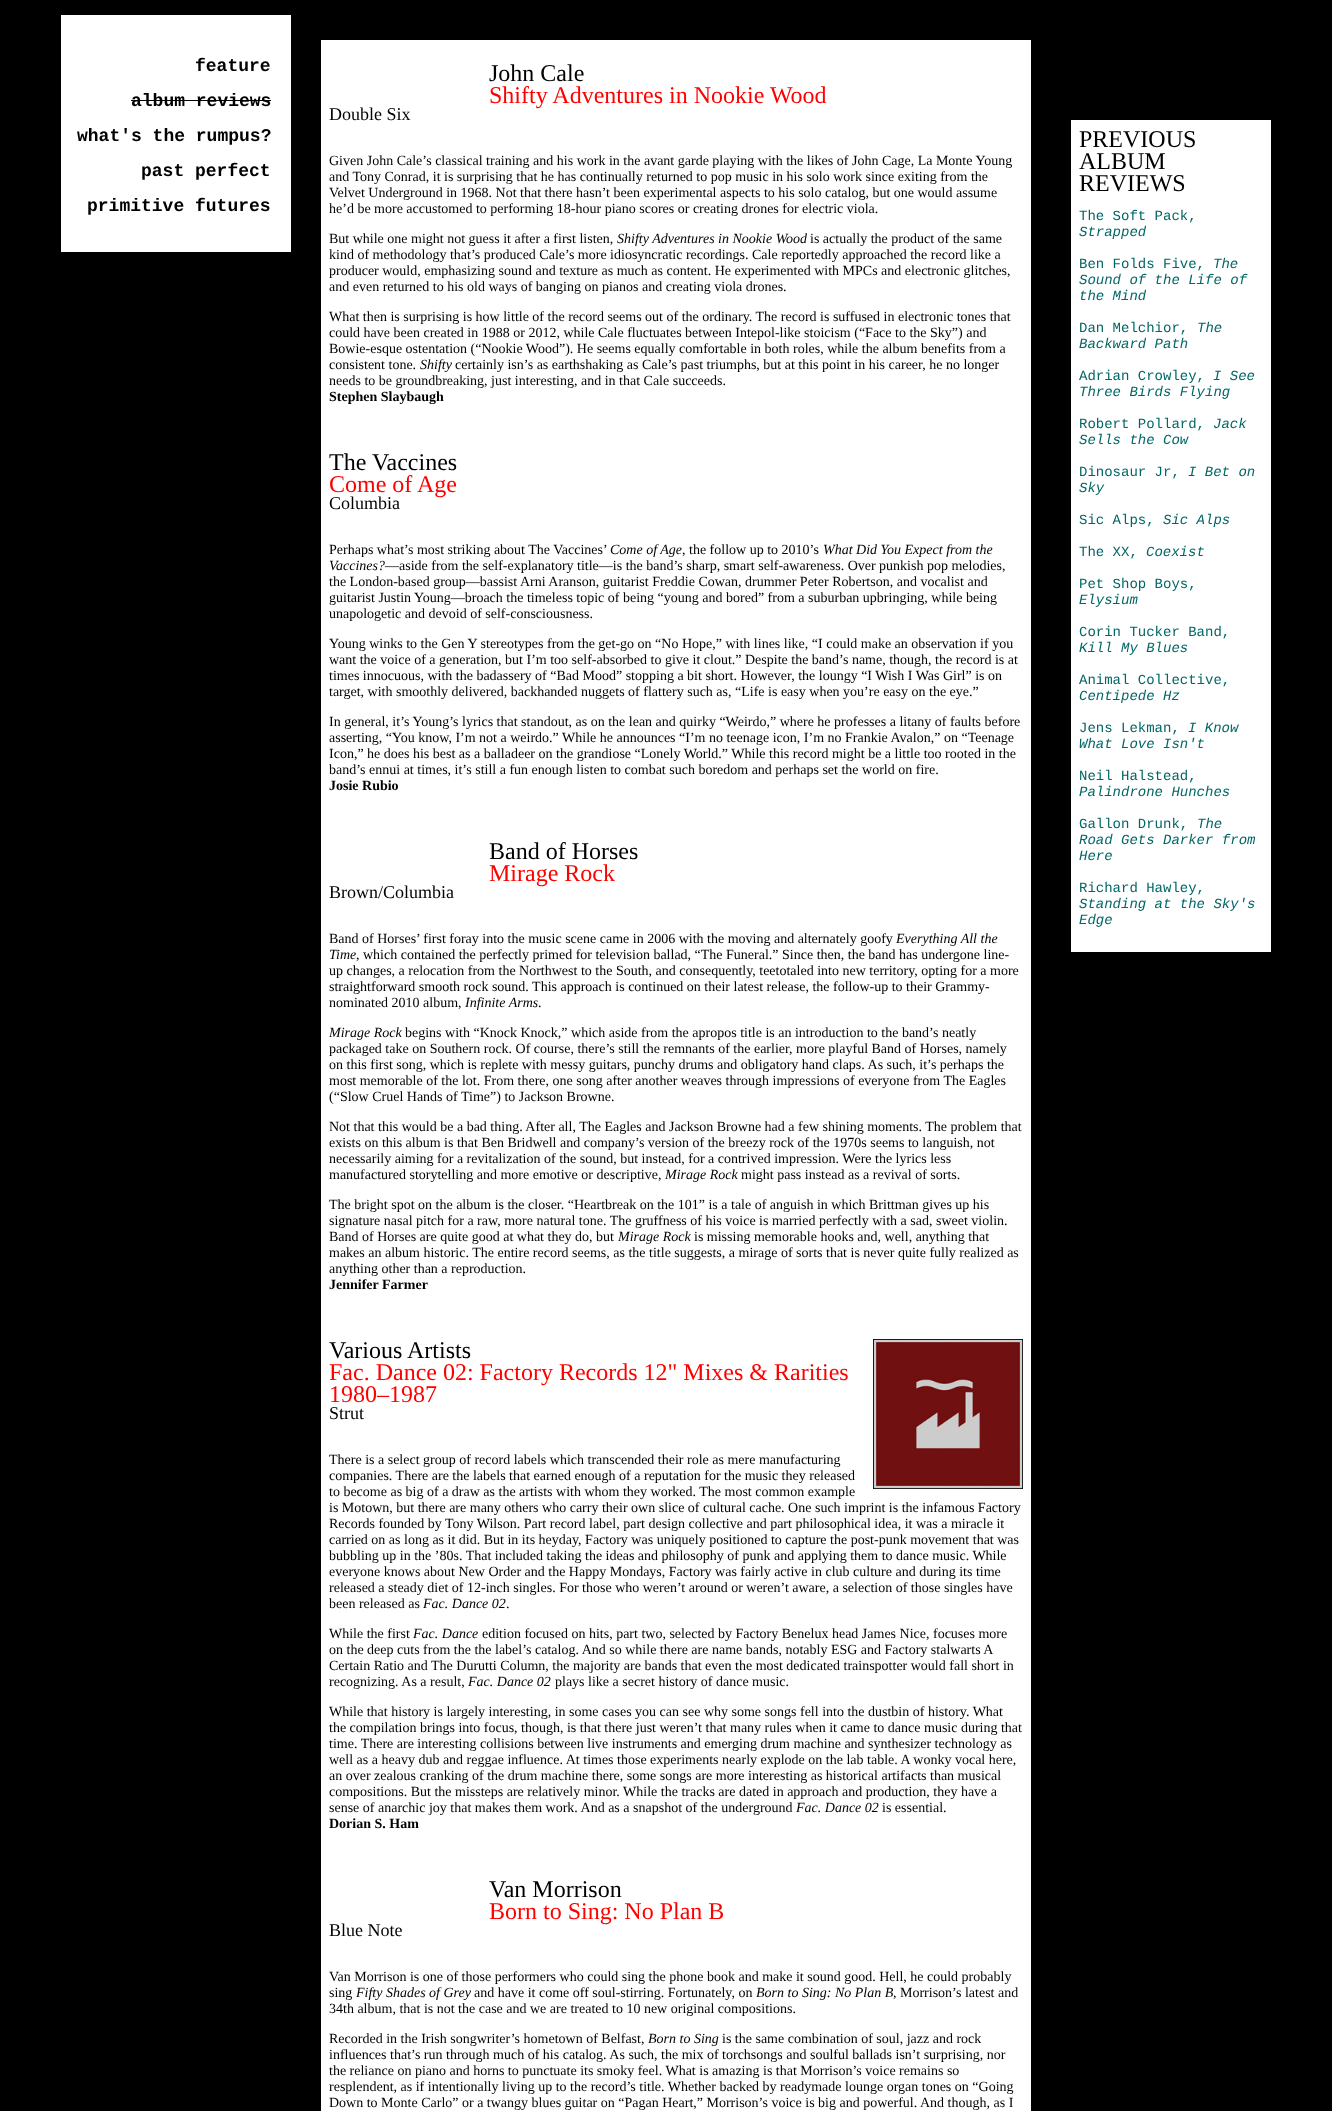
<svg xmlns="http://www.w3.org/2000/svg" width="1332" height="2111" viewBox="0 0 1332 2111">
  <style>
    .t1 { font: bold 18px Liberation Mono; fill: #000; }
    .t2 { font: 24px Liberation Serif; fill: #000; }
    .t3 { font: 24px Liberation Serif; fill: #f00; }
    .t4 { font: 18px Liberation Serif; fill: #000; }
    .t5 { font: 14px Liberation Serif; fill: #000; }
    .t6 { font: italic 14px Liberation Serif; fill: #000; }
    .t7 { font: bold 14px Liberation Serif; fill: #000; }
    .t8 { font: 14px Liberation Mono; fill: #066; }
    .t9 { font: italic 14px Liberation Mono; fill: #066; }
  </style>
  <rect width="100%" height="100%" fill="#000"/>
  <rect x="61" y="15" width="230" height="237" fill="#fff"/>
  <text x="195" y="71" class="t1">feature</text>
  <text x="131" y="106" class="t1">album reviews</text>
  <rect x="131" y="100" width="140" height="1" fill="#000"/>
  <text x="77" y="141" class="t1">what's the rumpus?</text>
  <text x="141" y="176" class="t1">past perfect</text>
  <text x="87" y="211" class="t1">primitive futures</text>
  <rect x="321" y="40" width="710" height="2071" fill="#fff"/>
  <text x="489" y="81" class="t2">John Cale</text>
  <text x="489" y="103" class="t3">Shifty Adventures in Nookie Wood</text>
  <text x="329" y="120" class="t4">Double Six</text>
  <text x="329" y="165" class="t5">Given John Cale’s classical training and his work in the avant garde playing with the likes of John Cage, La Monte Young</text>
  <text x="329" y="181" class="t5">and Tony Conrad, it is surprising that he has continually returned to pop music in his solo work since exiting from the</text>
  <text x="329" y="197" class="t5">Velvet Underground in 1968. Not that there hasn’t been experimental aspects to his solo catalog, but one would assume</text>
  <text x="329" y="213" class="t5">he’d be more accustomed to performing 18-hour piano scores or creating drones for electric viola.</text>
  <text x="329" y="243" class="t5">But while one might not guess it after a first listen,</text>
  <text x="617" y="243" class="t6">Shifty Adventures in Nookie Wood</text>
  <text x="810" y="243" class="t5">is actually the product of the same</text>
  <text x="329" y="259" class="t5">kind of methodology that’s produced Cale’s more idiosyncratic recordings. Cale reportedly approached the record like a</text>
  <text x="329" y="275" class="t5">producer would, emphasizing sound and texture as much as content. He experimented with MPCs and electronic glitches,</text>
  <text x="329" y="291" class="t5">and even returned to his old ways of banging on pianos and creating viola drones.</text>
  <text x="329" y="321" class="t5">What then is surprising is how little of the record seems out of the ordinary. The record is suffused in electronic tones that</text>
  <text x="329" y="337" class="t5">could have been created in 1988 or 2012, while Cale fluctuates between Intepol-like stoicism (“Face to the Sky”) and</text>
  <text x="329" y="353" class="t5">Bowie-esque ostentation (“Nookie Wood”). He seems equally comfortable in both roles, while the album benefits from a</text>
  <text x="329" y="369" class="t5">consistent tone.</text>
  <text x="420" y="369" class="t6">Shifty</text>
  <text x="455" y="369" class="t5">certainly isn’s as earthshaking as Cale’s past triumphs, but at this point in his career, he no longer</text>
  <text x="329" y="385" class="t5">needs to be groundbreaking, just interesting, and in that Cale succeeds.</text>
  <text x="329" y="401" class="t7">Stephen Slaybaugh</text>
  <text x="329" y="470" class="t2">The Vaccines</text>
  <text x="329" y="492" class="t3">Come of Age</text>
  <text x="329" y="509" class="t4">Columbia</text>
  <text x="329" y="554" class="t5">Perhaps what’s most striking about The Vaccines’</text>
  <text x="610" y="554" class="t6">Come of Age</text>
  <text x="682" y="554" class="t5">, the follow up to 2010’s</text>
  <text x="823" y="554" class="t6">What Did You Expect from the</text>
  <text x="329" y="570" class="t6">Vaccines?</text>
  <text x="385" y="570" class="t5">—aside from the self-explanatory title—is the band’s sharp, smart self-awareness. Over punkish pop melodies,</text>
  <text x="329" y="586" class="t5">the London-based group—bassist Arni Aranson, guitarist Freddie Cowan, drummer Peter Robertson, and vocalist and</text>
  <text x="329" y="602" class="t5">guitarist Justin Young—broach the timeless topic of being “young and bored” from a suburban upbringing, while being</text>
  <text x="329" y="618" class="t5">unapologetic and devoid of self-consciousness.</text>
  <text x="329" y="648" class="t5">Young winks to the Gen Y stereotypes from the get-go on “No Hope,” with lines like, “I could make an observation if you</text>
  <text x="329" y="664" class="t5">want the voice of a generation, but I’m too self-absorbed to give it clout.” Despite the band’s name, though, the record is at</text>
  <text x="329" y="680" class="t5">times innocuous, with the badassery of “Bad Mood” stopping a bit short. However, the loungy “I Wish I Was Girl” is on</text>
  <text x="329" y="696" class="t5">target, with smoothly delivered, backhanded nuggets of flattery such as, “Life is easy when you’re easy on the eye.”</text>
  <text x="329" y="726" class="t5">In general, it’s Young’s lyrics that standout, as on the lean and quirky “Weirdo,” where he professes a litany of faults before</text>
  <text x="329" y="742" class="t5">asserting, “You know, I’m not a weirdo.” While he announces “I’m no teenage icon, I’m no Frankie Avalon,” on “Teenage</text>
  <text x="329" y="758" class="t5">Icon,” he does his best as a balladeer on the grandiose “Lonely World.” While this record might be a little too rooted in the</text>
  <text x="329" y="774" class="t5">band’s ennui at times, it’s still a fun enough listen to combat such boredom and perhaps set the world on fire.</text>
  <text x="329" y="790" class="t7">Josie Rubio</text>
  <text x="489" y="859" class="t2">Band of Horses</text>
  <text x="489" y="881" class="t3">Mirage Rock</text>
  <text x="329" y="898" class="t4">Brown/Columbia</text>
  <text x="329" y="943" class="t5">Band of Horses’ first foray into the music scene came in 2006 with the moving and alternately goofy</text>
  <text x="896" y="943" class="t6">Everything All the</text>
  <text x="329" y="959" class="t6">Time</text>
  <text x="356" y="959" class="t5">, which contained the perfectly primed for television ballad, “The Funeral.” Since then, the band has undergone line-</text>
  <text x="329" y="975" class="t5">up changes, a relocation from the Northwest to the South, and consequently, teetotaled into new territory, opting for a more</text>
  <text x="329" y="991" class="t5">straightforward smooth rock sound. This approach is continued on their latest release, the follow-up to their Grammy-</text>
  <text x="329" y="1007" class="t5">nominated 2010 album,</text>
  <text x="465" y="1007" class="t6">Infinite Arms</text>
  <text x="538" y="1007" class="t5">.</text>
  <text x="329" y="1037" class="t6">Mirage Rock</text>
  <text x="405" y="1037" class="t5">begins with “Knock Knock,” which aside from the apropos title is an introduction to the band’s neatly</text>
  <text x="329" y="1053" class="t5">packaged take on Southern rock. Of course, there’s still the remnants of the earlier, more playful Band of Horses, namely</text>
  <text x="329" y="1069" class="t5">on this first song, which is replete with messy guitars, punchy drums and obligatory hand claps. As such, it’s perhaps the</text>
  <text x="329" y="1085" class="t5">most memorable of the lot. From there, one song after another weaves through impressions of everyone from The Eagles</text>
  <text x="329" y="1101" class="t5">(“Slow Cruel Hands of Time”) to Jackson Browne.</text>
  <text x="329" y="1131" class="t5">Not that this would be a bad thing. After all, The Eagles and Jackson Browne had a few shining moments. The problem that</text>
  <text x="329" y="1147" class="t5">exists on this album is that Ben Bridwell and company’s version of the breezy rock of the 1970s seems to languish, not</text>
  <text x="329" y="1163" class="t5">necessarily aiming for a revitalization of the sound, but instead, for a contrived impression. Were the lyrics less</text>
  <text x="329" y="1179" class="t5">manufactured storytelling and more emotive or descriptive,</text>
  <text x="665" y="1179" class="t6">Mirage Rock</text>
  <text x="741" y="1179" class="t5">might pass instead as a revival of sorts.</text>
  <text x="329" y="1209" class="t5">The bright spot on the album is the closer. “Heartbreak on the 101” is a tale of anguish in which Brittman gives up his</text>
  <text x="329" y="1225" class="t5">signature nasal pitch for a raw, more natural tone. The gruffness of his voice is married perfectly with a sad, sweet violin.</text>
  <text x="329" y="1241" class="t5">Band of Horses are quite good at what they do, but</text>
  <text x="618" y="1241" class="t6">Mirage Rock</text>
  <text x="694" y="1241" class="t5">is missing memorable hooks and, well, anything that</text>
  <text x="329" y="1257" class="t5">makes an album historic. The entire record seems, as the title suggests, a mirage of sorts that is never quite fully realized as</text>
  <text x="329" y="1273" class="t5">anything other than a reproduction.</text>
  <text x="329" y="1289" class="t7">Jennifer Farmer</text>
  <text x="329" y="1358" class="t2">Various Artists</text>
  <text x="329" y="1380" class="t3">Fac. Dance 02: Factory Records 12" Mixes &amp; Rarities</text>
  <text x="329" y="1402" class="t3">1980–1987</text>
  <text x="329" y="1419" class="t4">Strut</text>
  <image x="873" y="1339" width="150" height="150" href="images/1.png"/>
  <text x="329" y="1464" class="t5">There is a select group of record labels which transcended their role as mere manufacturing</text>
  <text x="329" y="1480" class="t5">companies. There are the labels that earned enough of a reputation for the music they released</text>
  <text x="329" y="1496" class="t5">to become as big of a draw as the artists with whom they worked. The most common example</text>
  <text x="329" y="1512" class="t5">is Motown, but there are many others who carry their own slice of cultural cache. One such imprint is the infamous Factory</text>
  <text x="329" y="1528" class="t5">Records founded by Tony Wilson. Part record label, part design collective and part philosophical idea, it was a miracle it</text>
  <text x="329" y="1544" class="t5">carried on as long as it did. But in its heyday, Factory was uniquely positioned to capture the post-punk movement that was</text>
  <text x="329" y="1560" class="t5">bubbling up in the ’80s. That included taking the ideas and philosophy of punk and applying them to dance music. While</text>
  <text x="329" y="1576" class="t5">everyone knows about New Order and the Happy Mondays, Factory was fairly active in club culture and during its time</text>
  <text x="329" y="1592" class="t5">released a steady diet of 12-inch singles. For those who weren’t around or weren’t aware, a selection of those singles have</text>
  <text x="329" y="1608" class="t5">been released as</text>
  <text x="423" y="1608" class="t6">Fac. Dance 02</text>
  <text x="506" y="1608" class="t5">.</text>
  <text x="329" y="1638" class="t5">While the first</text>
  <text x="413" y="1638" class="t6">Fac. Dance</text>
  <text x="482" y="1638" class="t5">edition focused on hits, part two, selected by Factory Benelux head James Nice, focuses more</text>
  <text x="329" y="1654" class="t5">on the deep cuts from the the label’s catalog. And so while there are name bands, notably ESG and Factory stalwarts A</text>
  <text x="329" y="1670" class="t5">Certain Ratio and The Durutti Column, the majority are bands that even the most dedicated trainspotter would fall short in</text>
  <text x="329" y="1686" class="t5">recognizing. As a result,</text>
  <text x="468" y="1686" class="t6">Fac. Dance 02</text>
  <text x="555" y="1686" class="t5">plays like a secret history of dance music.</text>
  <text x="329" y="1716" class="t5">While that history is largely interesting, in some cases you can see why some songs fell into the dustbin of history. What</text>
  <text x="329" y="1732" class="t5">the compilation brings into focus, though, is that there just weren’t that many rules when it came to dance music during that</text>
  <text x="329" y="1748" class="t5">time. There are interesting collisions between live instruments and emerging drum machine and synthesizer technology as</text>
  <text x="329" y="1764" class="t5">well as a heavy dub and reggae influence. At times those experiments nearly explode on the lab table. A wonky vocal here,</text>
  <text x="329" y="1780" class="t5">an over zealous cranking of the drum machine there, some songs are more interesting as historical artifacts than musical</text>
  <text x="329" y="1796" class="t5">compositions. But the missteps are relatively minor. While the tracks are dated in approach and production, they have a</text>
  <text x="329" y="1812" class="t5">sense of anarchic joy that makes them work. And as a snapshot of the underground</text>
  <text x="796" y="1812" class="t6">Fac. Dance 02</text>
  <text x="882" y="1812" class="t5">is essential.</text>
  <text x="329" y="1828" class="t7">Dorian S. Ham</text>
  <text x="489" y="1897" class="t2">Van Morrison</text>
  <text x="489" y="1919" class="t3">Born to Sing: No Plan B</text>
  <text x="329" y="1936" class="t4">Blue Note</text>
  <text x="329" y="1981" class="t5">Van Morrison is one of those performers who could sing the phone book and make it sound good. Hell, he could probably</text>
  <text x="329" y="1997" class="t5">sing</text>
  <text x="356" y="1997" class="t6">Fifty Shades of Grey</text>
  <text x="474" y="1997" class="t5">and have it come off soul-stirring. Fortunately, on</text>
  <text x="756" y="1997" class="t6">Born to Sing: No Plan B</text>
  <text x="893" y="1997" class="t5">, Morrison’s latest and</text>
  <text x="329" y="2013" class="t5">34th album, that is not the case and we are treated to 10 new original compositions.</text>
  <text x="329" y="2043" class="t5">Recorded in the Irish songwriter’s hometown of Belfast,</text>
  <text x="648" y="2043" class="t6">Born to Sing</text>
  <text x="722" y="2043" class="t5">is the same combination of soul, jazz and rock</text>
  <text x="329" y="2059" class="t5">influences that’s run through much of his catalog. As such, the mix of torchsongs and soulful ballads isn’t surprising, nor</text>
  <text x="329" y="2075" class="t5">the reliance on piano and horns to punctuate its smoky feel. What is amazing is that Morrison’s voice remains so</text>
  <text x="329" y="2091" class="t5">resplendent, as if intentionally living up to the record’s title. Whether backed by readymade lounge organ tones on “Going</text>
  <text x="329" y="2107" class="t5">Down to Monte Carlo” or a twangy blues guitar on “Pagan Heart,” Morrison’s voice is big and powerful. And though, as I</text>
  <rect x="1071" y="120" width="200" height="832" fill="#fff"/>
  <text x="1079" y="147" class="t2">PREVIOUS</text>
  <text x="1079" y="169" class="t2">ALBUM</text>
  <text x="1079" y="191" class="t2">REVIEWS</text>
  <text x="1079" y="220" class="t8">The Soft Pack,</text>
  <text x="1079" y="236" class="t9">Strapped</text>
  <text x="1079" y="268" class="t8">Ben Folds Five,</text>
  <text x="1213" y="268" class="t9">The</text>
  <text x="1079" y="284" class="t9">Sound of the Life of</text>
  <text x="1079" y="300" class="t9">the Mind</text>
  <text x="1079" y="332" class="t8">Dan Melchior,</text>
  <text x="1197" y="332" class="t9">The</text>
  <text x="1079" y="348" class="t9">Backward Path</text>
  <text x="1079" y="380" class="t8">Adrian Crowley,</text>
  <text x="1213" y="380" class="t9">I See</text>
  <text x="1079" y="396" class="t9">Three Birds Flying</text>
  <text x="1079" y="428" class="t8">Robert Pollard,</text>
  <text x="1213" y="428" class="t9">Jack</text>
  <text x="1079" y="444" class="t9">Sells the Cow</text>
  <text x="1079" y="476" class="t8">Dinosaur Jr,</text>
  <text x="1188" y="476" class="t9">I Bet on</text>
  <text x="1079" y="492" class="t9">Sky</text>
  <text x="1079" y="524" class="t8">Sic Alps,</text>
  <text x="1163" y="524" class="t9">Sic Alps</text>
  <text x="1079" y="556" class="t8">The XX,</text>
  <text x="1146" y="556" class="t9">Coexist</text>
  <text x="1079" y="588" class="t8">Pet Shop Boys,</text>
  <text x="1079" y="604" class="t9">Elysium</text>
  <text x="1079" y="636" class="t8">Corin Tucker Band,</text>
  <text x="1079" y="652" class="t9">Kill My Blues</text>
  <text x="1079" y="684" class="t8">Animal Collective,</text>
  <text x="1079" y="700" class="t9">Centipede Hz</text>
  <text x="1079" y="732" class="t8">Jens Lekman,</text>
  <text x="1188" y="732" class="t9">I Know</text>
  <text x="1079" y="748" class="t9">What Love Isn't</text>
  <text x="1079" y="780" class="t8">Neil Halstead,</text>
  <text x="1079" y="796" class="t9">Palindrone Hunches</text>
  <text x="1079" y="828" class="t8">Gallon Drunk,</text>
  <text x="1197" y="828" class="t9">The</text>
  <text x="1079" y="844" class="t9">Road Gets Darker from</text>
  <text x="1079" y="860" class="t9">Here</text>
  <text x="1079" y="892" class="t8">Richard Hawley,</text>
  <text x="1079" y="908" class="t9">Standing at the Sky's</text>
  <text x="1079" y="924" class="t9">Edge</text>
</svg>
